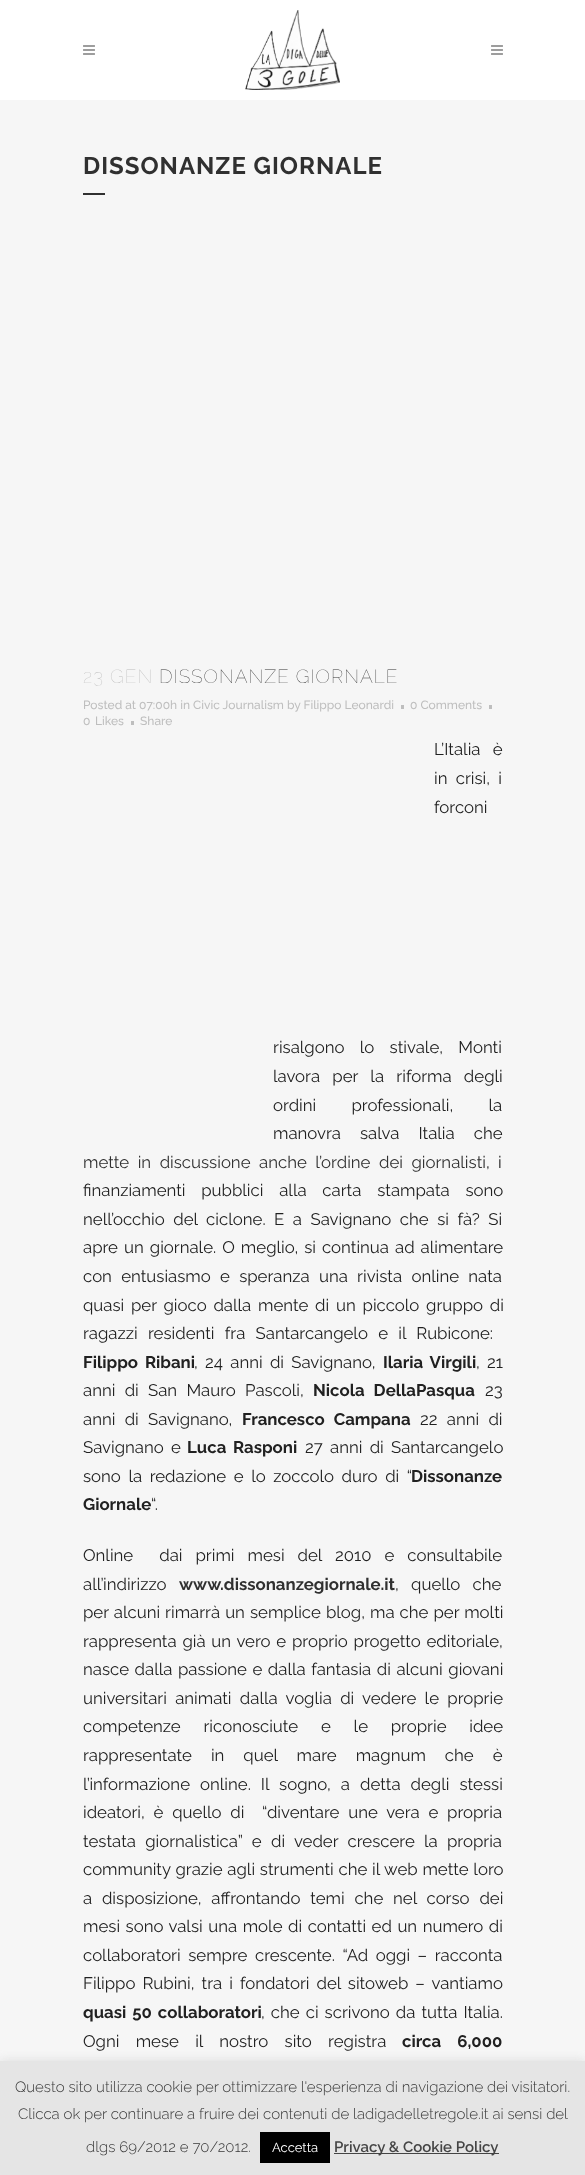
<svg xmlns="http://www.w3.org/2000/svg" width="585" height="2175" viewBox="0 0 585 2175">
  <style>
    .t1 { font: bold 24px Raleway; letter-spacing: 1px; fill: #303030; }
    .t2 { font: 100 19px Raleway; letter-spacing: 1px; fill: #bebebe; }
    .t3 { font: 100 19px Raleway; letter-spacing: 1px; fill: #303030; }
    .t4 { font: 500 12px Raleway; fill: #bebebe; }
    .t5 { font: 16.8px Raleway; fill: #212121; }
    .t6 { font: 16.8px Raleway; fill: #303030; }
    .t7 { font: bold 16.8px Raleway; fill: #212121; }
    .t8 { font: bold 16.8px Raleway; fill: #303030; }
    .t9 { font: 300 15px Raleway; fill: #383838; }
    .t10 { font: 13px Raleway; fill: #fff; }
    .t11 { font: 600 15px Raleway; fill: #444; }
  </style>
  <rect width="100%" height="100%" fill="#f6f6f6"/>
  <rect x="0" y="0" width="585" height="100" fill="#fff"/>
  <image x="83" y="45" width="12" height="10" href="images/1.png"/>
  <image x="245" y="10" width="95" height="80" href="images/2.png"/>
  <image x="491" y="45" width="12" height="10" href="images/1.png"/>
  <text x="83" y="174" class="t1">DISSONANZE GIORNALE</text>
  <rect x="83" y="193" width="22" height="2" fill="#303030"/>
  <text x="83" y="683" class="t2">23 GEN</text>
  <text x="159" y="683" class="t3">DISSONANZE GIORNALE</text>
  <text x="83" y="709" class="t4">Posted at 07:00h in Civic Journalism by Filippo Leonardi</text>
  <rect x="401" y="705" width="3" height="4" fill="#bebebe"/>
  <text x="410" y="709" class="t4">0 Comments</text>
  <rect x="489" y="705" width="3" height="4" fill="#bebebe"/>
  <text x="83" y="725" class="t4">0</text>
  <text x="95" y="725" class="t4">Likes</text>
  <rect x="131" y="721" width="3" height="4" fill="#bebebe"/>
  <text x="140" y="725" class="t4">Share</text>
  <text x="434" y="755" word-spacing="8" class="t5">L’Italia è</text>
  <text x="434" y="784" word-spacing="4" class="t5">in crisi, i</text>
  <text x="434" y="813" class="t5">forconi</text>
  <text x="273" y="1053" word-spacing="11" class="t5">risalgono lo stivale, Monti</text>
  <text x="273" y="1082" word-spacing="8" class="t5">lavora per la riforma degli</text>
  <text x="273" y="1111" word-spacing="31" class="t5">ordini professionali, la</text>
  <text x="273" y="1139" word-spacing="14.75" class="t5">manovra salva Italia che</text>
  <text x="83" y="1168" word-spacing="4.25" class="t6">mette in discussione anche l’ordine dei giornalisti</text>
  <text x="486" y="1168" word-spacing="4" class="t5">, i</text>
  <text x="83" y="1196" word-spacing="11.5" class="t5">finanziamenti pubblici alla carta stampata sono</text>
  <text x="83" y="1225" word-spacing="4.25" class="t5">nell’occhio del ciclone. E a Savignano che si fà? Si</text>
  <text x="83" y="1253" word-spacing="1.75" class="t5">apre un giornale. O meglio, si continua ad alimentare</text>
  <text x="83" y="1282" word-spacing="5" class="t5">con entusiasmo e speranza una rivista online nata</text>
  <text x="83" y="1311" word-spacing="2.5" class="t5">quasi per gioco dalla mente di un piccolo gruppo di</text>
  <text x="83" y="1339" word-spacing="6" class="t5">ragazzi residenti fra Santarcangelo e il Rubicone:</text>
  <text x="83" y="1368" word-spacing="3" class="t7">Filippo Ribani</text>
  <text x="194" y="1368" word-spacing="3" class="t5">, 24 anni di Savignano,</text>
  <text x="383" y="1368" word-spacing="3" class="t7">Ilaria Virgili</text>
  <text x="476" y="1368" word-spacing="3" class="t5">, 21</text>
  <text x="83" y="1396" word-spacing="5" class="t5">anni di San Mauro Pascoli,</text>
  <text x="313" y="1396" word-spacing="5" class="t7">Nicola DellaPasqua</text>
  <text x="485" y="1396" class="t5">23</text>
  <text x="83" y="1425" word-spacing="5" class="t5">anni di Savignano,</text>
  <text x="242" y="1425" word-spacing="5" class="t7">Francesco Campana</text>
  <text x="420" y="1425" word-spacing="5" class="t5">22 anni di</text>
  <text x="83" y="1453" word-spacing="3" class="t5">Savignano e</text>
  <text x="187" y="1453" word-spacing="2.75" class="t7">Luca Rasponi</text>
  <text x="305" y="1453" word-spacing="3" class="t5">27 anni di Santarcangelo</text>
  <text x="83" y="1482" word-spacing="3.25" class="t5">sono la redazione e lo zoccolo duro di “</text>
  <text x="411" y="1482" class="t7">Dissonanze</text>
  <text x="83" y="1510" class="t7">Giornale</text>
  <text x="151" y="1510" class="t5">“.</text>
  <text x="83" y="1561" word-spacing="8.75" class="t5" xml:space="preserve">Online  dai primi mesi del 2010 e consultabile</text>
  <text x="83" y="1590" class="t5">all’indirizzo</text>
  <text x="179" y="1590" class="t8">www.dissonanzegiornale.it</text>
  <text x="395" y="1590" word-spacing="8" class="t5">, quello che</text>
  <text x="83" y="1618" word-spacing="0.75" class="t5">per alcuni rimarrà un semplice blog, ma che per molti</text>
  <text x="83" y="1647" word-spacing="1.5" class="t5">rappresenta già un vero e proprio progetto editoriale,</text>
  <text x="83" y="1675" word-spacing="1.25" class="t5">nasce dalla passione e dalla fantasia di alcuni giovani</text>
  <text x="83" y="1704" word-spacing="4" class="t5">universitari animati dalla voglia di vedere le proprie</text>
  <text x="83" y="1732" word-spacing="18.5" class="t5">competenze riconosciute e le proprie idee</text>
  <text x="83" y="1761" word-spacing="14.75" class="t5">rappresentate in quel mare magnum che è</text>
  <text x="83" y="1790" word-spacing="5.75" class="t5">l’informazione online. Il sogno, a detta degli stessi</text>
  <text x="83" y="1818" word-spacing="4.5" class="t5" xml:space="preserve">ideatori, è quello di  “diventare une vera e propria</text>
  <text x="83" y="1847" word-spacing="5" class="t5">testata giornalistica” e di veder crescere la propria</text>
  <text x="83" y="1875" word-spacing="0.5" class="t5">community grazie agli strumenti che il web mette loro</text>
  <text x="83" y="1904" word-spacing="5.5" class="t5">a disposizione, affrontando temi che nel corso dei</text>
  <text x="83" y="1932" word-spacing="1.25" class="t5">mesi sono valsi una mole di contatti ed un numero di</text>
  <text x="83" y="1961" word-spacing="3.25" class="t5">collaboratori sempre crescente. “Ad oggi – racconta</text>
  <text x="83" y="1989" word-spacing="2.75" class="t5">Filippo Rubini, tra i fondatori del sitoweb – vantiamo</text>
  <text x="83" y="2018" word-spacing="2" class="t7">quasi 50 collaboratori</text>
  <text x="261" y="2018" word-spacing="1.75" class="t5">, che ci scrivono da tutta Italia.</text>
  <text x="83" y="2047" word-spacing="12" class="t5">Ogni mese il nostro sito registra</text>
  <text x="402" y="2047" word-spacing="12" class="t7">circa 6,000</text>
  <rect x="0" y="2060" width="585" height="114" fill="#acabab4d" filter="blur(5px)"/>
  <rect x="0" y="2061" width="585" height="114" fill="#e5e5e5"/>
  <text x="15" y="2092" class="t9">Questo sito utilizza cookie per ottimizzare l'esperienza di navigazione dei visitatori.</text>
  <text x="18" y="2119" class="t9">Clicca ok per continuare a fruire dei contenuti de ladigadelletregole.it ai sensi del</text>
  <text x="86" y="2152" class="t9">dlgs 69/2012 e 70/2012.</text>
  <rect x="260" y="2132" width="70" height="31" fill="#000"/>
  <text x="272" y="2152" class="t10">Accetta</text>
  <rect x="334" y="2153" width="165" height="1" fill="#444"/>
  <text x="334" y="2152" class="t11">Privacy &amp; Cookie Policy</text>
</svg>
